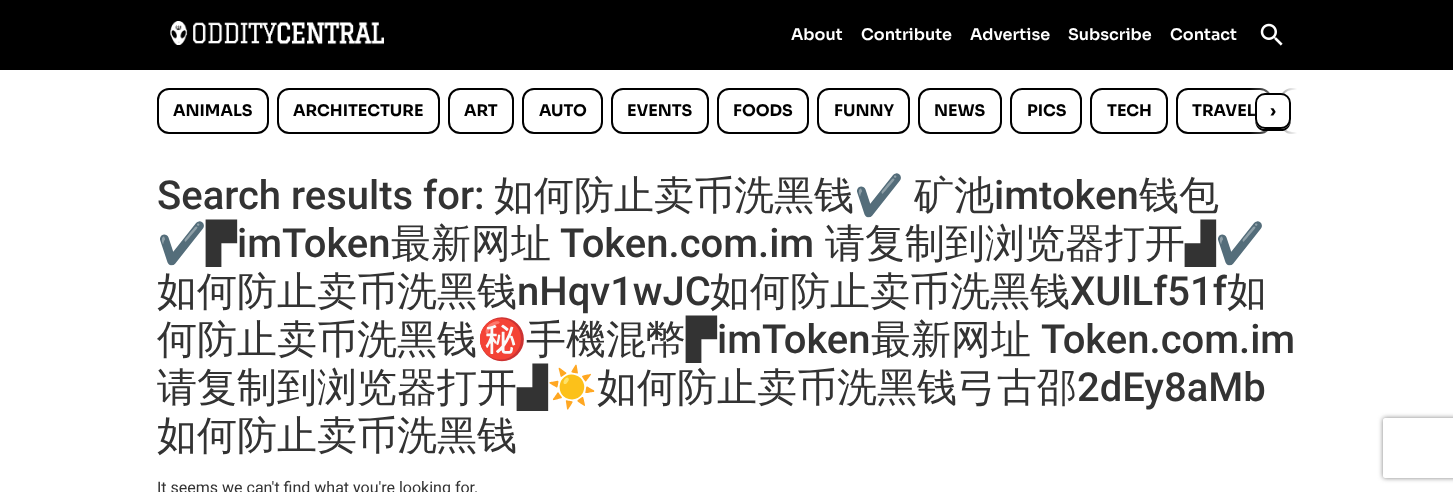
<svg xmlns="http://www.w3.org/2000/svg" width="1453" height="492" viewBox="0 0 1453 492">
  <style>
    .t1 { font: 600 16px Sora; fill: #fff; }
    .t2 { font: bold 16px Sora; fill: #000; }
    .t3 { font: 500 40px Roboto; fill: #333; }
    .t4 { font: 500 40px WenQuanYi Zen Hei; fill: #333; }
    .t5 { font: 40px Noto Color Emoji; fill: #333; }
    .t6 { font: 40px DejaVu Sans; fill: #333; }
    .t7 { font: 16px Roboto; fill: #333; }
  </style>
  <defs>
    <clipPath id="clip1"><rect x="157" y="84" width="1140" height="54"/></clipPath>
    <linearGradient id="g1" gradientUnits="userSpaceOnUse" x1="1297" y1="111" x2="1249" y2="111"><stop offset="0" stop-color="#fff"/><stop offset="1" stop-color="#fff" stop-opacity="0"/></linearGradient>
    <clipPath id="clip2"><path d="M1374 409H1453V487H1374ZM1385 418H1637C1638 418 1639 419 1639 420V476C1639 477 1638 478 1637 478H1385C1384 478 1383 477 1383 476V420C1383 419 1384 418 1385 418Z" clip-rule="evenodd"/></clipPath>
  </defs>
  <rect width="100%" height="100%" fill="#fff"/>
  <rect x="0" y="0" width="1453" height="70" fill="#000"/>
  <image x="170" y="21" width="214" height="24" href="images/1.png"/>
  <text x="791" y="40" class="t1">About</text>
  <text x="861" y="40" class="t1">Contribute</text>
  <text x="970" y="40" class="t1">Advertise</text>
  <text x="1068" y="40" class="t1">Subscribe</text>
  <text x="1170" y="40" class="t1">Contact</text>
  <image x="1260" y="23" width="23" height="23" href="images/2.png"/>
  <rect x="158" y="89" width="110" height="44" rx="11" fill="none" stroke="#000" stroke-width="2"/>
  <text x="173" y="116" class="t2">ANIMALS</text>
  <rect x="278" y="89" width="161" height="44" rx="11" fill="none" stroke="#000" stroke-width="2"/>
  <text x="293" y="116" class="t2">ARCHITECTURE</text>
  <rect x="449" y="89" width="64" height="44" rx="11" fill="none" stroke="#000" stroke-width="2"/>
  <text x="464" y="116" class="t2">ART</text>
  <rect x="523" y="89" width="79" height="44" rx="11" fill="none" stroke="#000" stroke-width="2"/>
  <text x="539" y="116" class="t2">AUTO</text>
  <rect x="612" y="89" width="96" height="44" rx="11" fill="none" stroke="#000" stroke-width="2"/>
  <text x="627" y="116" class="t2">EVENTS</text>
  <rect x="718" y="89" width="90" height="44" rx="11" fill="none" stroke="#000" stroke-width="2"/>
  <text x="733" y="116" class="t2">FOODS</text>
  <rect x="818" y="89" width="91" height="44" rx="11" fill="none" stroke="#000" stroke-width="2"/>
  <text x="834" y="116" class="t2">FUNNY</text>
  <rect x="919" y="89" width="82" height="44" rx="11" fill="none" stroke="#000" stroke-width="2"/>
  <text x="934" y="116" class="t2">NEWS</text>
  <rect x="1011" y="89" width="70" height="44" rx="11" fill="none" stroke="#000" stroke-width="2"/>
  <text x="1027" y="116" class="t2">PICS</text>
  <rect x="1091" y="89" width="76" height="44" rx="11" fill="none" stroke="#000" stroke-width="2"/>
  <text x="1107" y="116" class="t2">TECH</text>
  <rect x="1177" y="89" width="94" height="44" rx="11" fill="none" stroke="#000" stroke-width="2"/>
  <text x="1192" y="116" class="t2">TRAVEL</text>
  <g clip-path="url(#clip1)">
    <rect x="1281" y="89" width="95" height="44" rx="11" fill="none" stroke="#000" stroke-width="2"/>
  </g>
  <rect x="1250" y="88" width="47" height="46" fill="url(#g1)"/>
  <path d="M1255 119C1255 124.5 1257 129.5 1263 131H1273H1283C1289 129.5 1291 124.5 1291 119C1291 124.5 1286.5 129 1281 129H1265C1259.5 129 1255 124.5 1255 119Z" fill="#000"/>
  <rect x="1256" y="94" width="34" height="34" rx="9" fill="#fff" stroke="#000" stroke-width="2"/>
  <text x="1270" y="116" class="t2">›</text>
  <text x="157" y="209" class="t3">Search results for:</text>
  <text x="494" y="209" class="t4">如何防止卖币洗黑钱</text>
  <text x="854" y="209" class="t5">✔️</text>
  <text x="914" y="209" class="t4">矿池</text>
  <text x="994" y="209" class="t3">imtoken</text>
  <text x="1139" y="209" class="t4">钱包</text>
  <text x="157" y="257" class="t5">✔️</text>
  <text x="206" y="257" class="t6">▛</text>
  <text x="237" y="257" class="t3">imToken</text>
  <text x="391" y="257" class="t4">最新网址</text>
  <text x="560" y="257" class="t3">Token.com.im</text>
  <text x="825" y="257" class="t4">请复制到浏览器打开</text>
  <text x="1185" y="257" class="t6">▟</text>
  <text x="1215" y="257" class="t5">✔️</text>
  <text x="157" y="305" class="t4">如何防止卖币洗黑钱</text>
  <text x="517" y="305" class="t3">nHqv1wJC</text>
  <text x="710" y="305" class="t4">如何防止卖币洗黑钱</text>
  <text x="1070" y="305" class="t3">XUlLf51f</text>
  <text x="1227" y="305" class="t4">如</text>
  <text x="157" y="353" class="t4">何防止卖币洗黑钱</text>
  <text x="477" y="353" class="t5">㊙️</text>
  <text x="526" y="353" class="t4">手機混幣</text>
  <text x="686" y="353" class="t6">▛</text>
  <text x="717" y="353" class="t3">imToken</text>
  <text x="871" y="353" class="t4">最新网址</text>
  <text x="1041" y="353" class="t3">Token.com.im</text>
  <text x="157" y="401" class="t4">请复制到浏览器打开</text>
  <text x="517" y="401" class="t6">▟</text>
  <text x="547" y="401" class="t5">☀️</text>
  <text x="597" y="401" class="t4">如何防止卖币洗黑钱弓古邵</text>
  <text x="1077" y="401" class="t3">2dEy8aMb</text>
  <text x="157" y="449" class="t4">如何防止卖币洗黑钱</text>
  <text x="157" y="493" class="t7">It seems we can't find what you're looking for.</text>
  <g clip-path="url(#clip2)">
    <rect x="1383" y="418" width="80" height="60" rx="2" fill="#808080" filter="blur(2.5px)"/>
  </g>
</svg>
